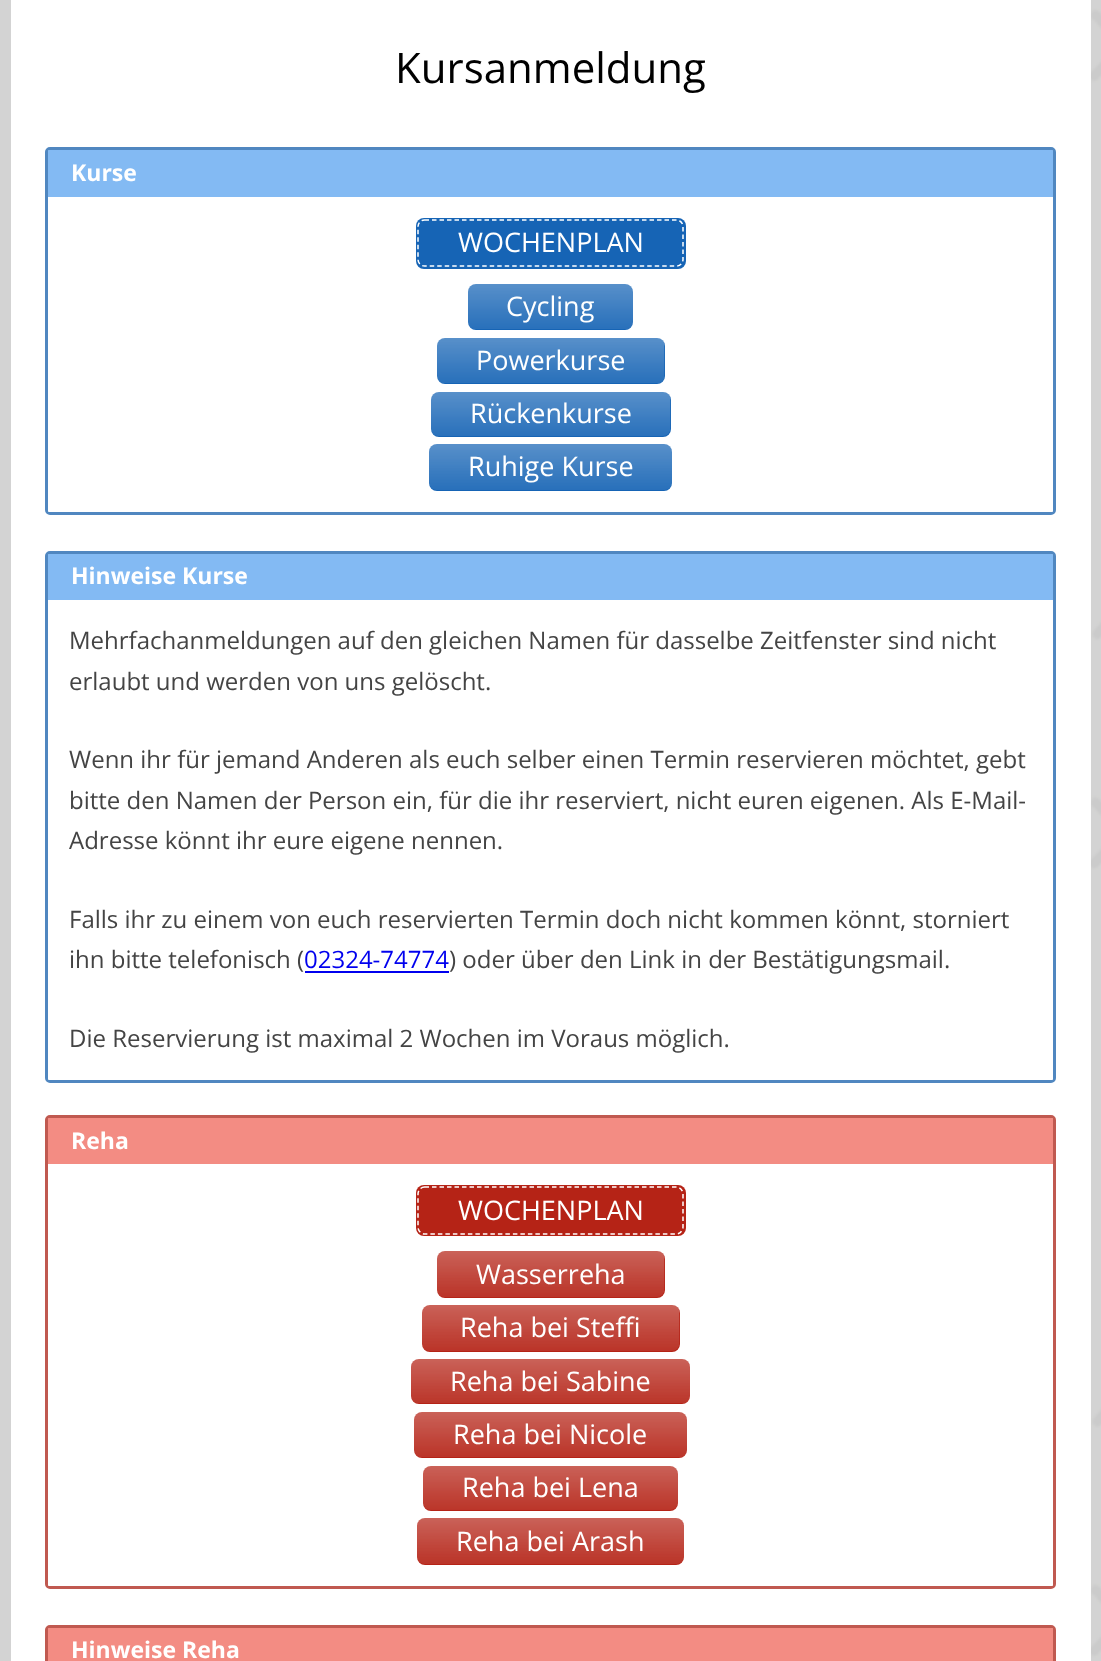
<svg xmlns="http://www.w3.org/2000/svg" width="1101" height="1661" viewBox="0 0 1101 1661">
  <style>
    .t1 { font: 42px Open Sans; fill: #000; }
    .t2 { font: bold 23px Open Sans; fill: #fff; }
    .t3 { font: 27px Open Sans; fill: #fff; }
    .t4 { font: 24px Open Sans; fill: #444; }
    .t5 { font: 24px Open Sans; fill: #00e; }
  </style>
  <rect width="100%" height="100%" fill="#fff"/>
  <image x="0" y="0" width="1101" height="1661" href="images/1.png"/>
  <rect x="11" y="0" width="1080" height="1661" fill="#fff"/>
  <text x="395" y="83" class="t1">Kursanmeldung</text>
  <rect x="46.5" y="148.5" width="1008" height="365" rx="3.5" fill="none" stroke="#5087c0" stroke-width="3"/>
  <path d="M49.5 150H1051.5C1052.5 150 1053 150.5 1053 151.5V197H48V151.5C48 150.5 48.5 150 49.5 150Z" fill="#83baf3"/>
  <text x="71" y="181" class="t2">Kurse</text>
  <path d="M48 197H1053V510.5C1053 511.5 1052.5 512 1051.5 512H49.5C48.5 512 48 511.5 48 510.5Z" fill="#fff"/>
  <rect x="416" y="218" width="270" height="51" rx="8" fill="#1664b5"/>
  <path d="M424.5 220H676.5C680 220 683 223 683 226.5V259.5C683 263 680 266 676.5 266H424.5C421 266 418 263 418 259.5V226.5C418 223 421 220 424.5 220Z" fill="none" stroke="#fff" stroke-width="1.5" stroke-dasharray="4.5 3"/>
  <text x="458" y="252" class="t3">WOCHENPLAN</text>
  <rect x="468" y="284" width="165" height="46" rx="8" fill="#1664b5"/>
  <image x="468" y="284" width="165" height="45" href="images/2.png"/>
  <text x="506" y="316" class="t3">Cycling</text>
  <rect x="437" y="338" width="228" height="46" rx="8" fill="#1664b5"/>
  <image x="437" y="338" width="228" height="45" href="images/3.png"/>
  <text x="476" y="370" class="t3">Powerkurse</text>
  <rect x="431" y="392" width="240" height="45" rx="8" fill="#1664b5"/>
  <image x="431" y="392" width="240" height="44" href="images/4.png"/>
  <text x="470" y="423" class="t3">Rückenkurse</text>
  <rect x="429" y="444" width="243" height="47" rx="8" fill="#1664b5"/>
  <image x="429" y="444" width="243" height="46" href="images/5.png"/>
  <text x="468" y="476" class="t3">Ruhige Kurse</text>
  <rect x="46.5" y="552.5" width="1008" height="529" rx="3.5" fill="none" stroke="#5087c0" stroke-width="3"/>
  <path d="M49.5 554H1051.5C1052.5 554 1053 554.5 1053 555.5V600H48V555.5C48 554.5 48.5 554 49.5 554Z" fill="#83baf3"/>
  <text x="71" y="584" class="t2">Hinweise Kurse</text>
  <path d="M48 600H1053V1078.5C1053 1079.5 1052.5 1080 1051.5 1080H49.5C48.5 1080 48 1079.5 48 1078.5Z" fill="#fff"/>
  <text x="69" y="649" class="t4">Mehrfachanmeldungen auf den gleichen Namen für dasselbe Zeitfenster sind nicht</text>
  <text x="69" y="690" class="t4">erlaubt und werden von uns gelöscht.</text>
  <text x="69" y="768" class="t4">Wenn ihr für jemand Anderen als euch selber einen Termin reservieren möchtet, gebt</text>
  <text x="69" y="809" class="t4">bitte den Namen der Person ein, für die ihr reserviert, nicht euren eigenen. Als E-Mail-</text>
  <text x="69" y="849" class="t4">Adresse könnt ihr eure eigene nennen.</text>
  <text x="69" y="928" class="t4">Falls ihr zu einem von euch reservierten Termin doch nicht kommen könnt, storniert</text>
  <text x="69" y="968" class="t4">ihn bitte telefonisch (</text>
  <text x="304" y="968" class="t5">02324-74774</text>
  <rect x="305" y="971" width="144" height="2" fill="#00e"/>
  <text x="449" y="968" class="t4">) oder über den Link in der Bestätigungsmail.</text>
  <text x="69" y="1047" class="t4">Die Reservierung ist maximal 2 Wochen im Voraus möglich.</text>
  <rect x="46.5" y="1116.5" width="1008" height="471" rx="3.5" fill="none" stroke="#c05950" stroke-width="3"/>
  <path d="M49.5 1118H1051.5C1052.5 1118 1053 1118.5 1053 1119.5V1164H48V1119.5C48 1118.5 48.5 1118 49.5 1118Z" fill="#f38c83"/>
  <text x="71" y="1149" class="t2">Reha</text>
  <path d="M48 1164H1053V1584.5C1053 1585.5 1052.5 1586 1051.5 1586H49.5C48.5 1586 48 1585.5 48 1584.5Z" fill="#fff"/>
  <rect x="416" y="1185" width="270" height="51" rx="8" fill="#b52316"/>
  <path d="M424.5 1187H676.5C680 1187 683 1190.5 683 1194V1227C683 1230.5 680 1234 676.5 1234H424.5C421 1234 418 1230.5 418 1227V1194C418 1190.5 421 1187 424.5 1187Z" fill="none" stroke="#fff" stroke-width="1.5" stroke-dasharray="4.5 3"/>
  <text x="458" y="1220" class="t3">WOCHENPLAN</text>
  <rect x="437" y="1251" width="228" height="47" rx="8" fill="#b52316"/>
  <image x="437" y="1251" width="228" height="46" href="images/6.png"/>
  <text x="476" y="1284" class="t3">Wasserreha</text>
  <rect x="422" y="1305" width="258" height="47" rx="8" fill="#b52316"/>
  <image x="422" y="1305" width="258" height="46" href="images/7.png"/>
  <text x="460" y="1337" class="t3">Reha bei Steffi</text>
  <rect x="411" y="1359" width="279" height="45" rx="8" fill="#b52316"/>
  <image x="411" y="1359" width="279" height="44" href="images/8.png"/>
  <text x="450" y="1391" class="t3">Reha bei Sabine</text>
  <rect x="414" y="1412" width="273" height="46" rx="8" fill="#b52316"/>
  <image x="414" y="1412" width="273" height="45" href="images/9.png"/>
  <text x="453" y="1444" class="t3">Reha bei Nicole</text>
  <rect x="423" y="1466" width="255" height="45" rx="8" fill="#b52316"/>
  <image x="423" y="1466" width="255" height="44" href="images/10.png"/>
  <text x="462" y="1497" class="t3">Reha bei Lena</text>
  <rect x="417" y="1518" width="267" height="47" rx="8" fill="#b52316"/>
  <image x="417" y="1518" width="267" height="46" href="images/11.png"/>
  <text x="456" y="1551" class="t3">Reha bei Arash</text>
  <rect x="46.5" y="1626.5" width="1008" height="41" rx="3.5" fill="none" stroke="#c05950" stroke-width="3"/>
  <path d="M49.5 1628H1051.5C1052.5 1628 1053 1628.5 1053 1629.5V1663H48V1629.5C48 1628.5 48.5 1628 49.5 1628Z" fill="#f38c83"/>
  <text x="71" y="1658" class="t2">Hinweise Reha</text>
</svg>
